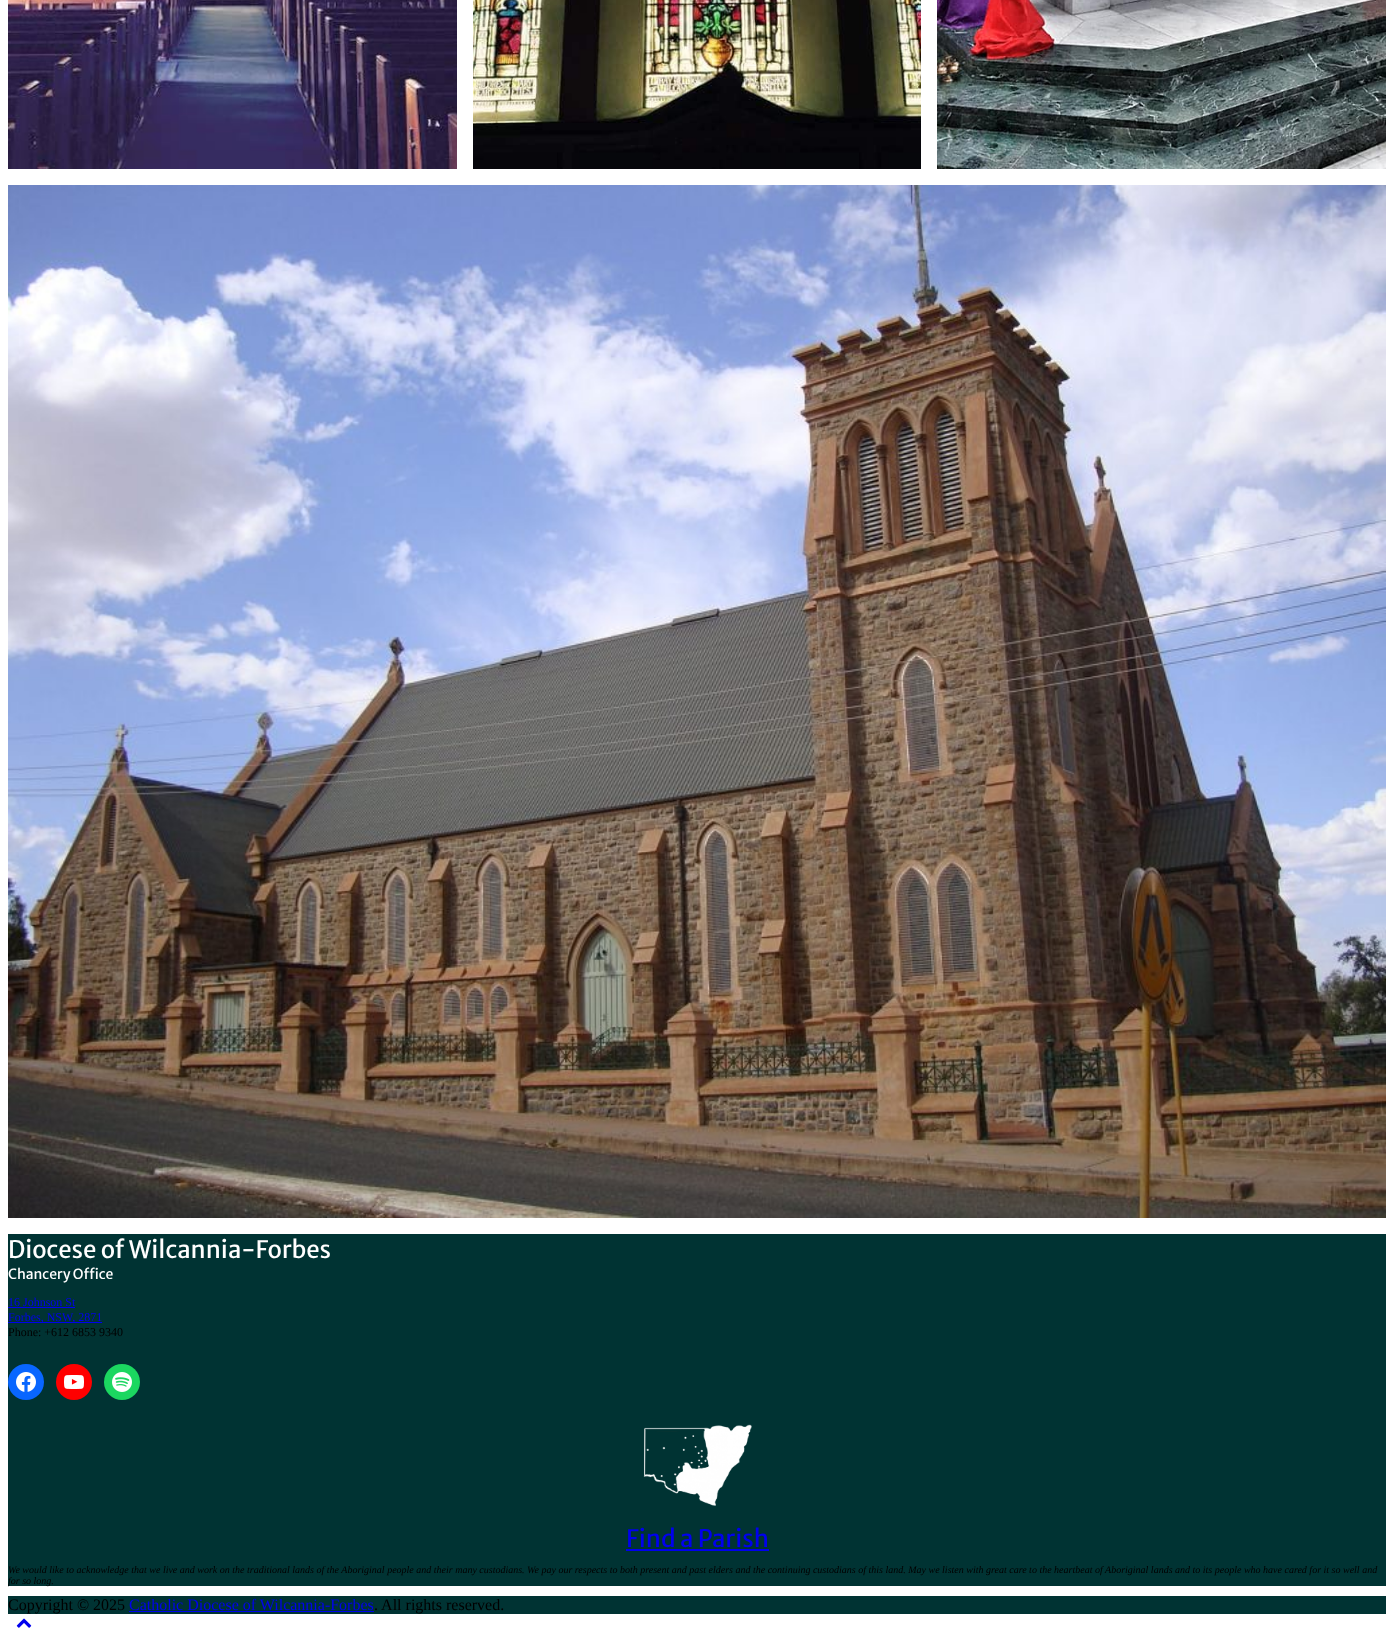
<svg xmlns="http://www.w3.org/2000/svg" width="1394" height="1640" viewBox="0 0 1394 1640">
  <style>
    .t1 { font: 24px Merriweather Sans; fill: #fff; }
    .t2 { font: 14px Merriweather Sans; fill: #fff; }
    .t3 { font: 12px Liberation Serif; fill: #00e; }
    .t4 { font: 12px Liberation Serif; fill: #000; }
    .t5 { font: 24px Merriweather Sans; fill: #00e; }
    .t6 { font: italic 10px Liberation Serif; fill: #000; }
    .t7 { font: 16px Liberation Serif; fill: #000; }
    .t8 { font: 16px Liberation Serif; fill: #00e; }
  </style>
  <rect width="100%" height="100%" fill="#fff"/>
  <image x="8" y="0" width="449" height="169" href="images/1.png"/>
  <image x="473" y="0" width="448" height="169" href="images/2.png"/>
  <image x="937" y="0" width="449" height="169" href="images/3.png"/>
  <image x="8" y="185" width="1378" height="1033" href="images/4.png"/>
  <rect x="8" y="1234" width="1378" height="352" fill="#033"/>
  <text x="8" y="1258" class="t1">Diocese of Wilcannia-Forbes</text>
  <text x="8" y="1279" class="t2">Chancery Office</text>
  <text x="8" y="1306" class="t3">16 Johnson St</text>
  <rect x="8" y="1307" width="67" height="1" fill="#00e"/>
  <rect x="8" y="1322" width="94" height="1" fill="#00e"/>
  <text x="8" y="1321" class="t3">Forbes, NSW, 2871</text>
  <text x="8" y="1336" class="t4">Phone: +612 6853 9340</text>
  <circle cx="26" cy="1382" r="18" fill="#0866ff"/>
  <image x="16" y="1372" width="20" height="20" href="images/5.png"/>
  <circle cx="74" cy="1382" r="18" fill="#f00"/>
  <image x="64" y="1375" width="20" height="14" href="images/6.png"/>
  <circle cx="122" cy="1382" r="18" fill="#1bd760"/>
  <image x="112" y="1372" width="20" height="20" href="images/7.png"/>
  <image x="643" y="1424" width="109" height="82" href="images/8.png"/>
  <text x="626" y="1547" class="t5">Find a Parish</text>
  <rect x="626" y="1549" width="143" height="2" fill="#00e"/>
  <text x="8" y="1573" class="t6">We would like to acknowledge that we live and work on the traditional lands of the Aboriginal people and their many custodians. We pay our respects to both present and past elders and the continuing custodians of this land. May we listen with great care to the heartbeat of Aboriginal lands and to its people who have cared for it so well and</text>
  <text x="8" y="1584" class="t6">for so long.</text>
  <rect x="8" y="1596" width="1378" height="18" fill="#033"/>
  <text x="8" y="1610" class="t7">Copyright © 2025</text>
  <text x="129" y="1610" class="t8">Catholic Diocese of Wilcannia-Forbes</text>
  <rect x="129" y="1611" width="245" height="1" fill="#00e"/>
  <text x="374" y="1610" class="t7">. All rights reserved.</text>
  <image x="16" y="1618" width="16" height="10" href="images/9.png"/>
</svg>
